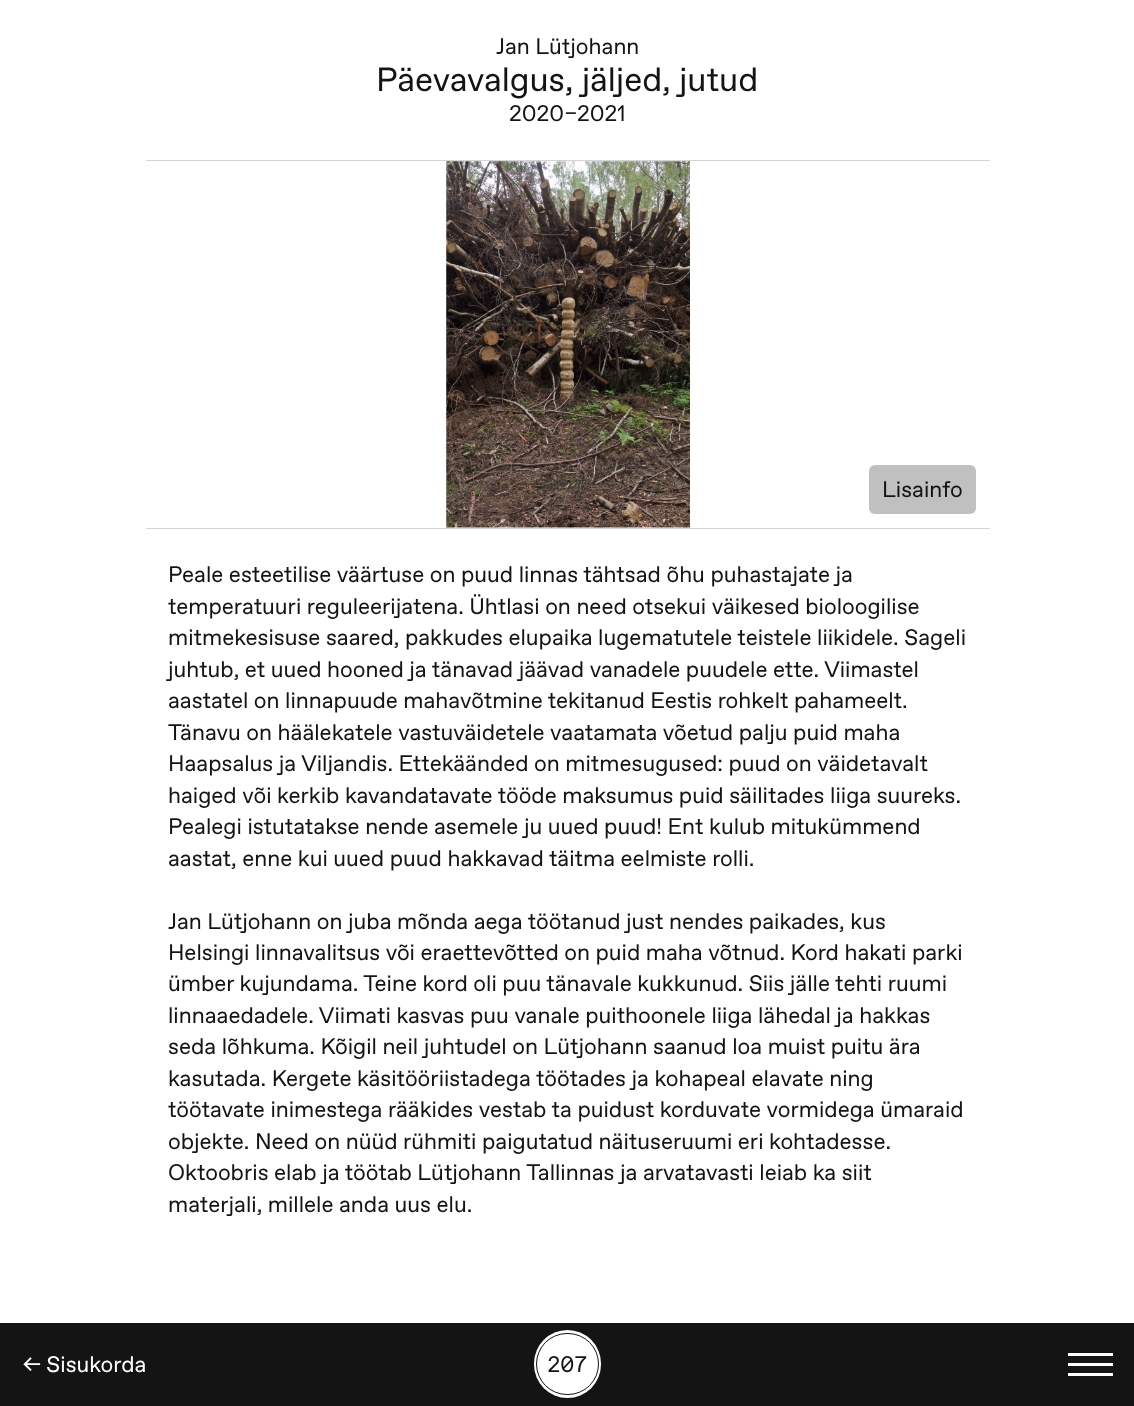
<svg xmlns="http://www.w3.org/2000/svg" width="1134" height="1406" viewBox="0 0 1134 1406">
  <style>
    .t1 { font: 300 22.5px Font; fill: #141414; }
    .t2 { font: 300 33.75px Font; fill: #141414; }
    .t3 { font: 300 22.5px Font; fill: #fff; }
    .t4 { font: 300 22.5px 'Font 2'; fill: #141414; }
  </style>
  <rect width="100%" height="100%" fill="#fff"/>
  <rect x="146" y="160" width="844" height="1" fill="#d4d4d4"/>
  <text x="496" y="54" class="t1">Jan Lütjohann</text>
  <text x="376" y="91" class="t2">Päevavalgus, jäljed, jutud</text>
  <text x="509" y="121" class="t1">2020–2021</text>
  <rect x="146" y="528" width="844" height="1" fill="#d4d4d4"/>
  <image x="446" y="161" width="244" height="367" href="images/1.png"/>
  <rect x="869" y="465" width="107" height="49" rx="6" fill="#c0c0c0"/>
  <text x="882" y="497" class="t1">Lisainfo</text>
  <text x="168" y="582" class="t1">Peale esteetilise väärtuse on puud linnas tähtsad õhu puhastajate ja</text>
  <text x="168" y="614" class="t1">temperatuuri reguleerijatena. Ühtlasi on need otsekui väikesed bioloogilise</text>
  <text x="168" y="645" class="t1">mitmekesisuse saared, pakkudes elupaika lugematutele teistele liikidele. Sageli</text>
  <text x="168" y="677" class="t1">juhtub, et uued hooned ja tänavad jäävad vanadele puudele ette. Viimastel</text>
  <text x="168" y="708" class="t1">aastatel on linnapuude mahavõtmine tekitanud Eestis rohkelt pahameelt.</text>
  <text x="168" y="740" class="t1">Tänavu on häälekatele vastuväidetele vaatamata võetud palju puid maha</text>
  <text x="168" y="771" class="t1">Haapsalus ja Viljandis. Ettekäänded on mitmesugused: puud on väidetavalt</text>
  <text x="168" y="803" class="t1">haiged või kerkib kavandatavate tööde maksumus puid säilitades liiga suureks.</text>
  <text x="168" y="834" class="t1">Pealegi istutatakse nende asemele ju uued puud! Ent kulub mitukümmend</text>
  <text x="168" y="866" class="t1">aastat, enne kui uued puud hakkavad täitma eelmiste rolli.</text>
  <text x="168" y="929" class="t1">Jan Lütjohann on juba mõnda aega töötanud just nendes paikades, kus</text>
  <text x="168" y="960" class="t1">Helsingi linnavalitsus või eraettevõtted on puid maha võtnud. Kord hakati parki</text>
  <text x="168" y="991" class="t1">ümber kujundama. Teine kord oli puu tänavale kukkunud. Siis jälle tehti ruumi</text>
  <text x="168" y="1023" class="t1">linnaaedadele. Viimati kasvas puu vanale puithoonele liiga lähedal ja hakkas</text>
  <text x="168" y="1054" class="t1">seda lõhkuma. Kõigil neil juhtudel on Lütjohann saanud loa muist puitu ära</text>
  <text x="168" y="1086" class="t1">kasutada. Kergete käsitööriistadega töötades ja kohapeal elavate ning</text>
  <text x="168" y="1117" class="t1">töötavate inimestega rääkides vestab ta puidust korduvate vormidega ümaraid</text>
  <text x="168" y="1149" class="t1">objekte. Need on nüüd rühmiti paigutatud näituseruumi eri kohtadesse.</text>
  <text x="168" y="1180" class="t1">Oktoobris elab ja töötab Lütjohann Tallinnas ja arvatavasti leiab ka siit</text>
  <text x="168" y="1212" class="t1">materjali, millele anda uus elu.</text>
  <rect x="0" y="1323" width="1134" height="83" fill="#141414"/>
  <text x="23" y="1372" class="t3">← Sisukorda</text>
  <rect x="534" y="1330" width="67" height="68" rx="33.5" fill="#fff"/>
  <rect x="536.5" y="1333.5" width="62" height="61" rx="30.5" fill="none" stroke="#141414"/>
  <text x="547" y="1372" class="t4">207</text>
  <rect x="1068" y="1353" width="45" height="3" fill="#fff"/>
  <rect x="1068" y="1363" width="45" height="3" fill="#fff"/>
  <rect x="1068" y="1373" width="45" height="3" fill="#fff"/>
</svg>
